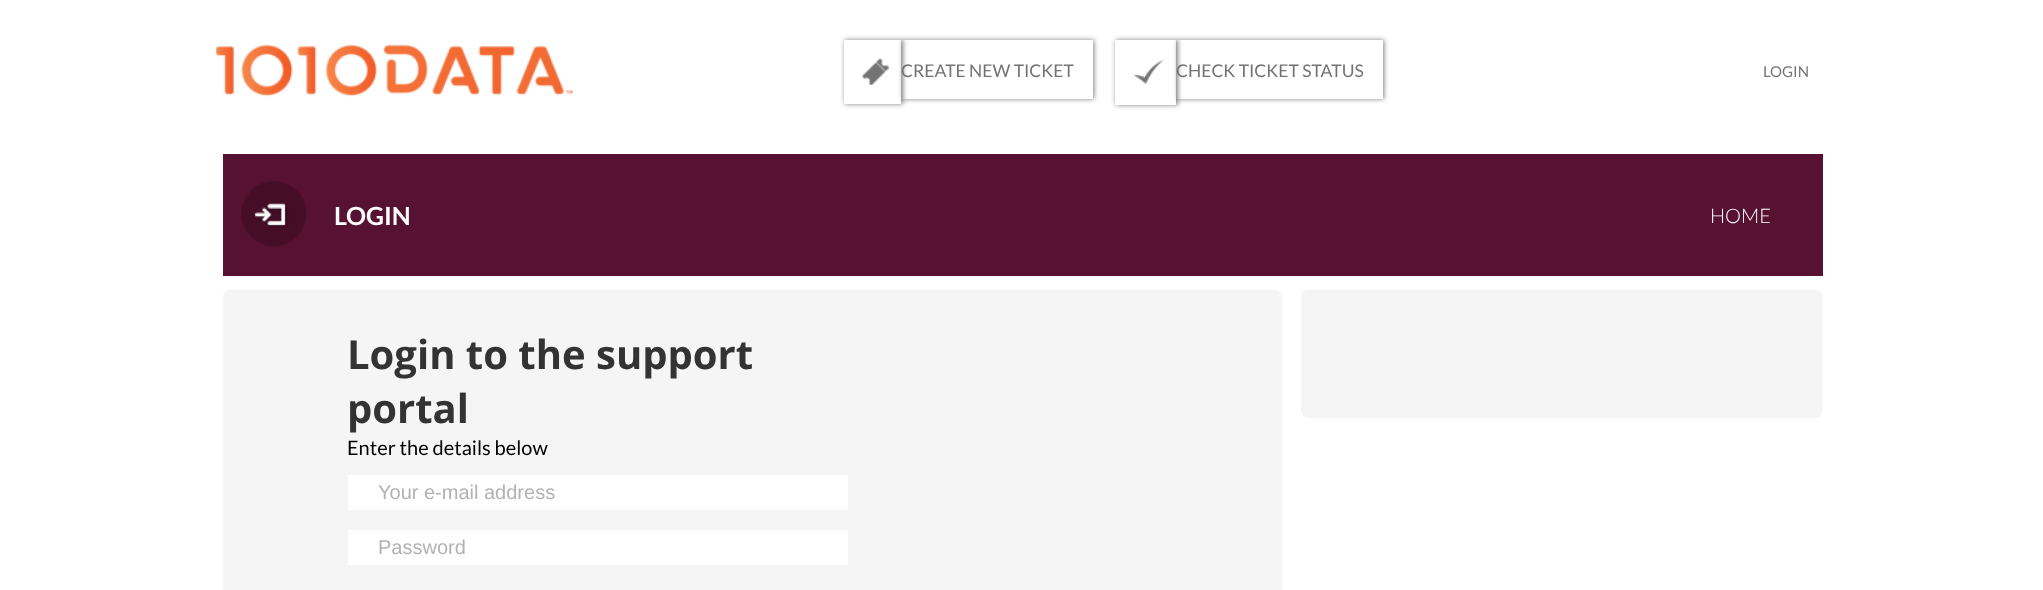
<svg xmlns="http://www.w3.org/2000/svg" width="2043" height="590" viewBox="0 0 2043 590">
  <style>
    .t1 { font: 17.5px Lato; fill: #737373; }
    .t2 { font: 15px Lato; fill: #737373; }
    .t3 { font: bold 25px Lato; fill: #fff; }
    .t4 { font: 300 20px Lato; fill: #fff; }
    .t5 { font: bold 40px Open Sans; fill: #333; }
    .t6 { font: 20px Lato; fill: #000; }
    .t7 { font: 20px Liberation Sans; fill: #b2b2b2; }
  </style>
  <defs>
    <clipPath id="clip1"><path d="M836 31H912V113H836ZM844 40H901V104H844Z" clip-rule="evenodd"/></clipPath>
    <clipPath id="clip2"><path d="M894 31H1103V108H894ZM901 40H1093V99H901Z" clip-rule="evenodd"/></clipPath>
    <clipPath id="clip3"><path d="M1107 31H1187V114H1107ZM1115 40H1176V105H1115Z" clip-rule="evenodd"/></clipPath>
    <clipPath id="clip4"><path d="M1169 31H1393V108H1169ZM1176 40H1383V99H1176Z" clip-rule="evenodd"/></clipPath>
  </defs>
  <rect width="100%" height="100%" fill="#fff"/>
  <image x="216" y="44" width="357" height="53" href="images/1.png"/>
  <g clip-path="url(#clip1)">
    <rect x="845" y="40" width="58" height="64" fill="#00000080" filter="blur(2.5px)"/>
  </g>
  <image x="862" y="58" width="27" height="27" href="images/2.png"/>
  <g clip-path="url(#clip2)">
    <rect x="903" y="40" width="191" height="59" fill="#00000080" filter="blur(2.5px)"/>
  </g>
  <text x="901" y="77" class="t1">CREATE NEW TICKET</text>
  <g clip-path="url(#clip3)">
    <rect x="1116" y="40" width="62" height="65" fill="#00000080" filter="blur(2.5px)"/>
  </g>
  <image x="1133" y="60" width="31" height="24" href="images/3.png"/>
  <g clip-path="url(#clip4)">
    <rect x="1178" y="40" width="206" height="59" fill="#00000080" filter="blur(2.5px)"/>
  </g>
  <text x="1176" y="77" class="t1">CHECK TICKET STATUS</text>
  <text x="1763" y="77" class="t2">LOGIN</text>
  <rect x="223" y="154" width="1600" height="122" fill="#571133"/>
  <image x="241" y="181" width="66" height="66" href="images/4.png"/>
  <text x="334" y="225" class="t3">LOGIN</text>
  <text x="1710" y="223" class="t4">HOME</text>
  <rect x="223" y="289" width="1060" height="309" rx="8" fill="#f5f5f5"/>
  <path d="M230 290H1275C1279 290 1282 293 1282 298V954V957C1282 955 1283 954 1283 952V297C1283 293 1279 289 1275 289H231C229 289 226 290 225 292C226 291 228 290 230 290Z" fill="#ffffffb3"/>
  <text x="347" y="369" class="t5">Login to the support</text>
  <text x="347" y="423" class="t5">portal</text>
  <text x="347" y="455" class="t6">Enter the details below</text>
  <rect x="348" y="475" width="500" height="35" fill="#fff"/>
  <text x="378" y="499" class="t7">Your e-mail address</text>
  <rect x="348" y="530" width="500" height="35" fill="#fff"/>
  <text x="378" y="554" class="t7">Password</text>
  <rect x="1301" y="289" width="522" height="129" rx="8" fill="#f5f5f5"/>
  <path d="M1309 290H1815C1819 290 1822 293 1822 298V411C1822 413 1821 414 1821 416C1822 414 1823 412 1823 410V297C1823 293 1819 289 1815 289H1309C1305 289 1301 293 1301 297V298C1301 293 1305 290 1309 290Z" fill="#ffffffb3"/>
</svg>
